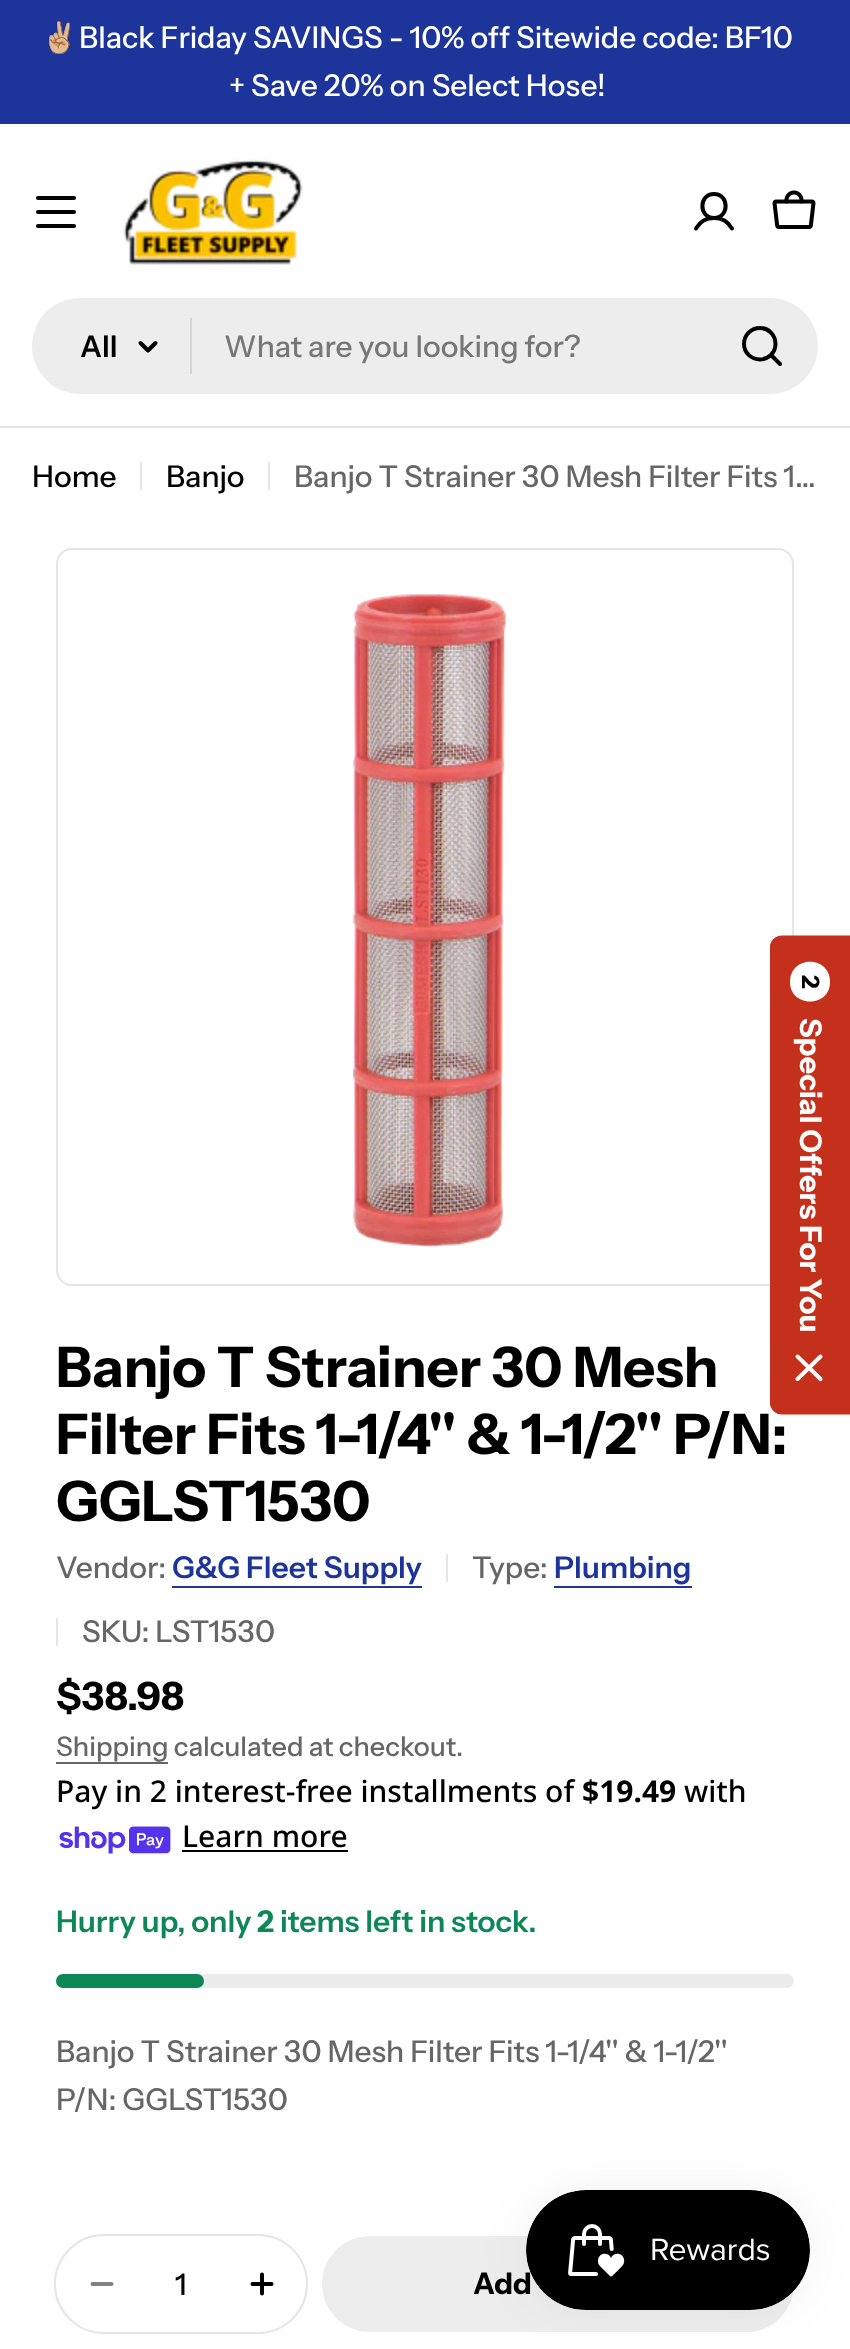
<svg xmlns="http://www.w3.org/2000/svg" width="850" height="2349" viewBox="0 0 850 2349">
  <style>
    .t1 { font: 30px Noto Color Emoji; fill: #fff; }
    .t2 { font: 500 30px Instrument Sans; fill: #fff; }
    .t3 { font: 600 30px Instrument Sans; fill: #000; }
    .t4 { font: 500 30px Instrument Sans; fill: #777; }
    .t5 { font: 500 30px Instrument Sans; fill: #000; }
    .t6 { font: 500 30px Instrument Sans; fill: #666; }
    .t7 { font: bold 56px Instrument Sans; fill: #000; }
    .t8 { font: 600 30px Instrument Sans; fill: #1d349a; }
    .t9 { font: bold 39px Instrument Sans; fill: #000; }
    .t10 { font: 500 27px Instrument Sans; fill: #666; }
    .t11 { font: 500 30px Noto Sans; fill: #000; }
    .t12 { font: bold 30px Noto Sans; fill: #000; }
    .t13 { font: 600 30px Instrument Sans; fill: #0d8756; }
    .t14 { font: bold 30px Instrument Sans; fill: #0d8756; }
    .t15 { font: bold 30px Instrument Sans; fill: #000; }
    .t16 { font: bold 24px Instrument Sans; fill: #000; }
    .t17 { font: bold 30px Instrument Sans; fill: #fff; }
  </style>
  <rect width="100%" height="100%" fill="#fff"/>
  <rect x="0" y="0" width="850" height="124" fill="#1d349a"/>
  <text x="41" y="48" class="t1">✌🏼</text>
  <text x="79" y="48" class="t2">Black Friday SAVINGS - 10% off Sitewide code: BF10</text>
  <text x="229" y="96" class="t2">+ Save 20% on Select Hose!</text>
  <rect x="36" y="210" width="40" height="4" rx="2" fill="#000"/>
  <rect x="36" y="196" width="40" height="4" rx="2" fill="#000"/>
  <rect x="36" y="224" width="40" height="4" rx="2" fill="#000"/>
  <image x="123" y="158" width="180" height="107" href="images/1.png"/>
  <path d="M714 218C729.5 218 729.5 194 714 194C698.5 194 698.5 218 714 218ZM696 228.5C704 214.5 724 214.5 732 228.5" fill="none" stroke="#000" stroke-width="4" stroke-linecap="round" stroke-linejoin="round"/>
  <image x="772" y="190" width="44" height="39" href="images/2.png"/>
  <rect x="32" y="298" width="786" height="96" rx="48" fill="#ededed"/>
  <text x="80" y="357" class="t3">All</text>
  <path d="M155.5 343L148 350.5L140.5 343" fill="none" stroke="#000" stroke-width="4" stroke-linecap="round" stroke-linejoin="round"/>
  <rect x="190" y="318" width="2" height="56" fill="#d5d5d5"/>
  <text x="224" y="357" class="t4">What are you looking for?</text>
  <path d="M760 359.5C768.5 359.5 775.5 352.5 775.5 344C775.5 335 768.5 328 760 328C751 328 744 335 744 344C744 352.5 751 359.5 760 359.5ZM771 355L780 364" fill="none" stroke="#000" stroke-width="4" stroke-linecap="round" stroke-linejoin="round"/>
  <rect x="0" y="426" width="850" height="2" fill="#e5e5e5"/>
  <text x="32" y="487" class="t5">Home</text>
  <rect x="140" y="462" width="2" height="28" fill="#e6e6e6"/>
  <text x="166" y="487" class="t5">Banjo</text>
  <rect x="268" y="462" width="2" height="28" fill="#e6e6e6"/>
  <text x="294" y="487" class="t6">Banjo T Strainer 30 Mesh Filter Fits 1…</text>
  <image x="352" y="593" width="155" height="655" href="images/3.png"/>
  <rect x="57" y="549" width="736" height="736" rx="15" fill="none" stroke="#e5e5e5" stroke-width="2"/>
  <text x="56" y="1387" class="t7">Banjo T Strainer 30 Mesh</text>
  <text x="56" y="1454" class="t7">Filter Fits 1-1/4'' &amp; 1-1/2'' P/N:</text>
  <text x="56" y="1521" class="t7">GGLST1530</text>
  <text x="56" y="1578" class="t6">Vendor:</text>
  <text x="172" y="1578" class="t8">G&amp;G Fleet Supply</text>
  <rect x="172" y="1586" width="250" height="2" fill="#1d349a"/>
  <rect x="446" y="1554" width="2" height="28" fill="#e5e5e5"/>
  <text x="472" y="1578" class="t6">Type:</text>
  <text x="554" y="1578" class="t8">Plumbing</text>
  <rect x="554" y="1586" width="138" height="2" fill="#1d349a"/>
  <rect x="56" y="1618" width="2" height="28" fill="#e5e5e5"/>
  <text x="82" y="1642" class="t6">SKU: LST1530</text>
  <text x="56" y="1710" class="t9">$38.98</text>
  <text x="56" y="1756" class="t10">Shipping calculated at checkout.</text>
  <rect x="56" y="1762" width="112" height="2" fill="#666"/>
  <text x="56" y="1802" class="t11">Pay in 2 interest-free installments of</text>
  <text x="582" y="1802" class="t12">$19.49</text>
  <text x="684" y="1802" class="t11">with</text>
  <image x="59" y="1826" width="112" height="28" href="images/4.png"/>
  <text x="182" y="1847" class="t11">Learn more</text>
  <rect x="182" y="1850" width="166" height="2" fill="#000"/>
  <text x="56" y="1932" class="t13">Hurry up, only</text>
  <text x="257" y="1932" class="t14">2</text>
  <text x="280" y="1932" class="t13">items left in stock.</text>
  <rect x="56" y="1974" width="738" height="14" rx="7" fill="#ececec"/>
  <rect x="56" y="1974" width="148" height="14" rx="7" fill="#0d8756"/>
  <text x="56" y="2062" class="t6">Banjo T Strainer 30 Mesh Filter Fits 1-1/4'' &amp; 1-1/2''</text>
  <text x="56" y="2110" class="t6">P/N: GGLST1530</text>
  <rect x="55" y="2235" width="252" height="98" rx="49" fill="none" stroke="#e5e5e5" stroke-width="2"/>
  <path d="M92.5 2284H111.5" fill="none" stroke="#808080" stroke-width="4" stroke-linecap="round" stroke-linejoin="round"/>
  <text x="175" y="2295" class="t5">1</text>
  <path d="M252.5 2284H271.5M262 2274.5V2293.5" fill="none" stroke="#000" stroke-width="4" stroke-linecap="round" stroke-linejoin="round"/>
  <rect x="323" y="2237" width="470" height="94" rx="47" fill="#ededed" stroke="#ededed" stroke-width="2"/>
  <text x="473" y="2294" class="t15">Add</text>
  <path d="M770 1402V948C770 941 775 936 782 936H850V1414H782C775 1414 770 1409 770 1402Z" fill="#c4301c"/>
  <path d="M771 1402.5V947.5C771 941.5 776 936.5 782 936.5H849V1413.5H782C776 1413.5 771 1408.5 771 1402.5Z" fill="none" stroke="#c4301c" stroke-width="2"/>
  <path d="M830 982C830 1008 790 1008 790 982C790 955 830 955 830 982Z" fill="#fff"/>
  <text x="802" y="975" transform="rotate(90 802 975)" class="t16">2</text>
  <text x="800" y="1018" transform="rotate(90 800 1018)" class="t17">Special Offers For You</text>
  <path d="M820.5 1379L797.5 1356.5M797.5 1379L820.5 1356.5" fill="none" stroke="#fff" stroke-width="4" stroke-linecap="round" stroke-linejoin="round"/>
  <rect x="526" y="2190" width="284" height="120" rx="60" fill="#0000000d" filter="blur(25px)"/>
  <image x="526" y="2190" width="284" height="120" href="images/5.png"/>
</svg>
